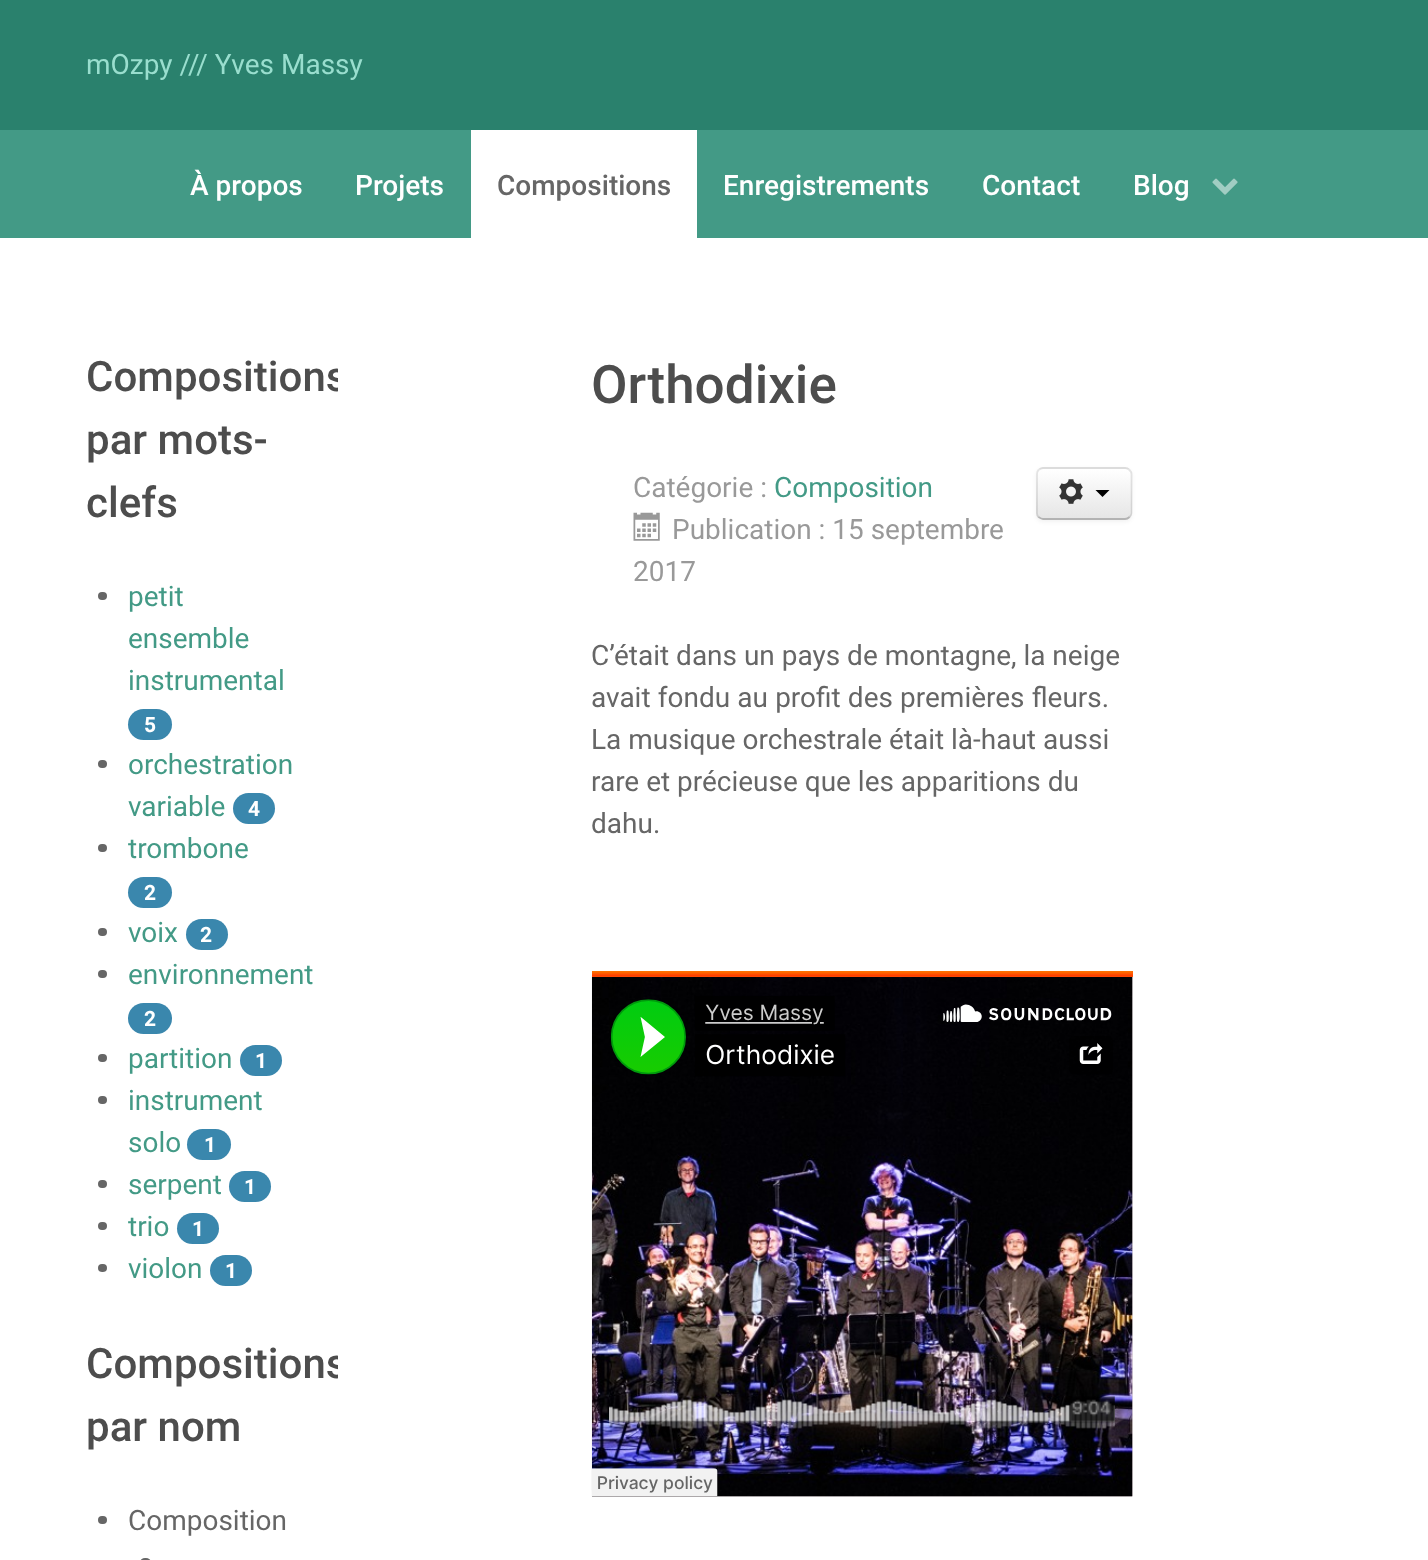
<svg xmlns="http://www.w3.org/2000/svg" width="1428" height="1560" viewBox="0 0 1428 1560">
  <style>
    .t1 { font: 28px Roboto; fill: #99dece; }
    .t2 { font: 500 28px Roboto; fill: #fff; }
    .t3 { font: 500 28px Roboto; fill: #666; }
    .t4 { font: 500 42px Roboto; fill: #4d4d4d; }
    .t5 { font: 28px Roboto; fill: #439a86; }
    .t6 { font: bold 21px Roboto; fill: #fff; }
    .t7 { font: 28px Roboto; fill: #666; }
    .t8 { font: 500 53px Roboto; fill: #4d4d4d; }
    .t9 { font: 28px Roboto; fill: #999; }
  </style>
  <defs>
    <clipPath id="clip1"><rect x="1036" y="467" width="96" height="53" rx="7"/></clipPath>
    <linearGradient id="g1" gradientUnits="userSpaceOnUse" x1="1084" y1="469" x2="1084" y2="518"><stop offset="0" stop-color="#fff"/><stop offset="1" stop-color="#e6e6e6"/></linearGradient>
  </defs>
  <rect width="100%" height="100%" fill="#fff"/>
  <rect x="0" y="0" width="1428" height="130" fill="#2a816d"/>
  <text x="86" y="74" class="t1">mOzpy /// Yves Massy</text>
  <rect x="0" y="130" width="1428" height="108" fill="#439a86"/>
  <text x="190" y="195" class="t2">À propos</text>
  <text x="355" y="195" class="t2">Projets</text>
  <rect x="471" y="130" width="226" height="108" fill="#fff"/>
  <text x="497" y="195" class="t3">Compositions</text>
  <text x="723" y="195" class="t2">Enregistrements</text>
  <text x="982" y="195" class="t2">Contact</text>
  <text x="1133" y="195" class="t2">Blog</text>
  <image x="1212" y="178" width="26" height="17" href="images/1.png"/>
  <text x="86" y="391" class="t4">Compositions</text>
  <text x="86" y="454" class="t4">par mots-</text>
  <text x="86" y="517" class="t4">clefs</text>
  <rect x="98" y="592" width="9" height="8" rx="4" fill="#666"/>
  <text x="128" y="606" class="t5">petit</text>
  <text x="128" y="648" class="t5">ensemble</text>
  <text x="128" y="690" class="t5">instrumental</text>
  <rect x="128" y="709" width="44" height="31" rx="15.5" fill="#3a87ad"/>
  <text x="144" y="732" class="t6">5</text>
  <rect x="98" y="760" width="9" height="8" rx="4" fill="#666"/>
  <text x="128" y="774" class="t5">orchestration</text>
  <text x="128" y="816" class="t5">variable</text>
  <rect x="233" y="793" width="42" height="31" rx="15.5" fill="#3a87ad"/>
  <text x="248" y="816" class="t6">4</text>
  <rect x="98" y="844" width="9" height="8" rx="4" fill="#666"/>
  <text x="128" y="858" class="t5">trombone</text>
  <rect x="128" y="877" width="44" height="31" rx="15.5" fill="#3a87ad"/>
  <text x="144" y="900" class="t6">2</text>
  <rect x="98" y="928" width="9" height="8" rx="4" fill="#666"/>
  <text x="128" y="942" class="t5">voix</text>
  <rect x="186" y="919" width="42" height="31" rx="15.5" fill="#3a87ad"/>
  <text x="200" y="942" class="t6">2</text>
  <rect x="98" y="970" width="9" height="8" rx="4" fill="#666"/>
  <text x="128" y="984" class="t5">environnement</text>
  <rect x="128" y="1003" width="44" height="31" rx="15.5" fill="#3a87ad"/>
  <text x="144" y="1026" class="t6">2</text>
  <rect x="98" y="1054" width="9" height="8" rx="4" fill="#666"/>
  <text x="128" y="1068" class="t5">partition</text>
  <rect x="240" y="1045" width="42" height="31" rx="15.5" fill="#3a87ad"/>
  <text x="255" y="1068" class="t6">1</text>
  <rect x="98" y="1096" width="9" height="8" rx="4" fill="#666"/>
  <text x="128" y="1110" class="t5">instrument</text>
  <text x="128" y="1152" class="t5">solo</text>
  <rect x="187" y="1129" width="44" height="31" rx="15.5" fill="#3a87ad"/>
  <text x="204" y="1152" class="t6">1</text>
  <rect x="98" y="1180" width="9" height="8" rx="4" fill="#666"/>
  <text x="128" y="1194" class="t5">serpent</text>
  <rect x="229" y="1171" width="42" height="31" rx="15.5" fill="#3a87ad"/>
  <text x="244" y="1194" class="t6">1</text>
  <rect x="98" y="1222" width="9" height="8" rx="4" fill="#666"/>
  <text x="128" y="1236" class="t5">trio</text>
  <rect x="177" y="1213" width="42" height="31" rx="15.5" fill="#3a87ad"/>
  <text x="192" y="1236" class="t6">1</text>
  <rect x="98" y="1264" width="9" height="8" rx="4" fill="#666"/>
  <text x="128" y="1278" class="t5">violon</text>
  <rect x="210" y="1255" width="42" height="31" rx="15.5" fill="#3a87ad"/>
  <text x="225" y="1278" class="t6">1</text>
  <text x="86" y="1378" class="t4">Compositions</text>
  <text x="86" y="1441" class="t4">par nom</text>
  <rect x="98" y="1516" width="9" height="8" rx="4" fill="#666"/>
  <text x="128" y="1530" class="t7">Composition</text>
  <rect x="141" y="1559" width="9" height="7" rx="4" fill="none" stroke="#666" stroke-width="2"/>
  <rect x="338" y="368" width="8" height="1011" fill="#fff"/>
  <text x="591" y="403" class="t8">Orthodixie</text>
  <text x="633" y="497" class="t9">Catégorie :</text>
  <text x="774" y="497" class="t5">Composition</text>
  <image x="633" y="512" width="27" height="29" href="images/2.png"/>
  <text x="672" y="539" class="t9">Publication : 15 septembre</text>
  <text x="633" y="581" class="t9">2017</text>
  <rect x="1036" y="469" width="96" height="53" rx="7" fill="#0000000d" filter="blur(2px)"/>
  <rect x="1036" y="467" width="96" height="53" rx="7" fill="#f5f5f5"/>
  <g clip-path="url(#clip1)">
    <rect x="1036" y="469" width="96" height="49" fill="url(#g1)"/>
  </g>
  <path d="M1043 471H1125C1128 471 1130 473 1130 476V514V517C1130 516 1131 514 1131 513V474C1131 471 1129 469 1126 469H1043C1040 469 1038 471 1038 474V476C1038 473 1040 471 1043 471Z" fill="#ffffff33"/>
  <path d="M1129.5 517C1128.5 518 1127 519 1125 519H1043C1041.5 519 1040 518 1038.5 517" fill="none" stroke="#b3b3b3" stroke-width="1.8"/>
  <path d="M1038.5 517C1037.5 516 1037 514.5 1037 513V474C1037 472.5 1037.5 471 1038.5 470C1040 469 1041.5 468 1043 468H1125C1127 468 1128.5 469 1129.5 470C1130.5 471 1131.5 472.5 1131.5 474V513C1131.5 514.5 1130.5 516 1129.5 517" fill="none" stroke="#0000001a" stroke-width="1.8"/>
  <image x="1059" y="479" width="24" height="25" href="images/3.png"/>
  <path d="M1095.5 490H1109.5L1102.5 497Z" fill="#000"/>
  <text x="591" y="665" class="t7">C’était dans un pays de montagne, la neige</text>
  <text x="591" y="707" word-spacing="0.25" class="t7">avait fondu au profit des premières fleurs.</text>
  <text x="591" y="749" class="t7">La musique orchestrale était là-haut aussi</text>
  <text x="591" y="791" class="t7">rare et précieuse que les apparitions du</text>
  <text x="591" y="833" class="t7">dahu.</text>
  <image x="591" y="971" width="542" height="526" href="images/4.png"/>
</svg>
